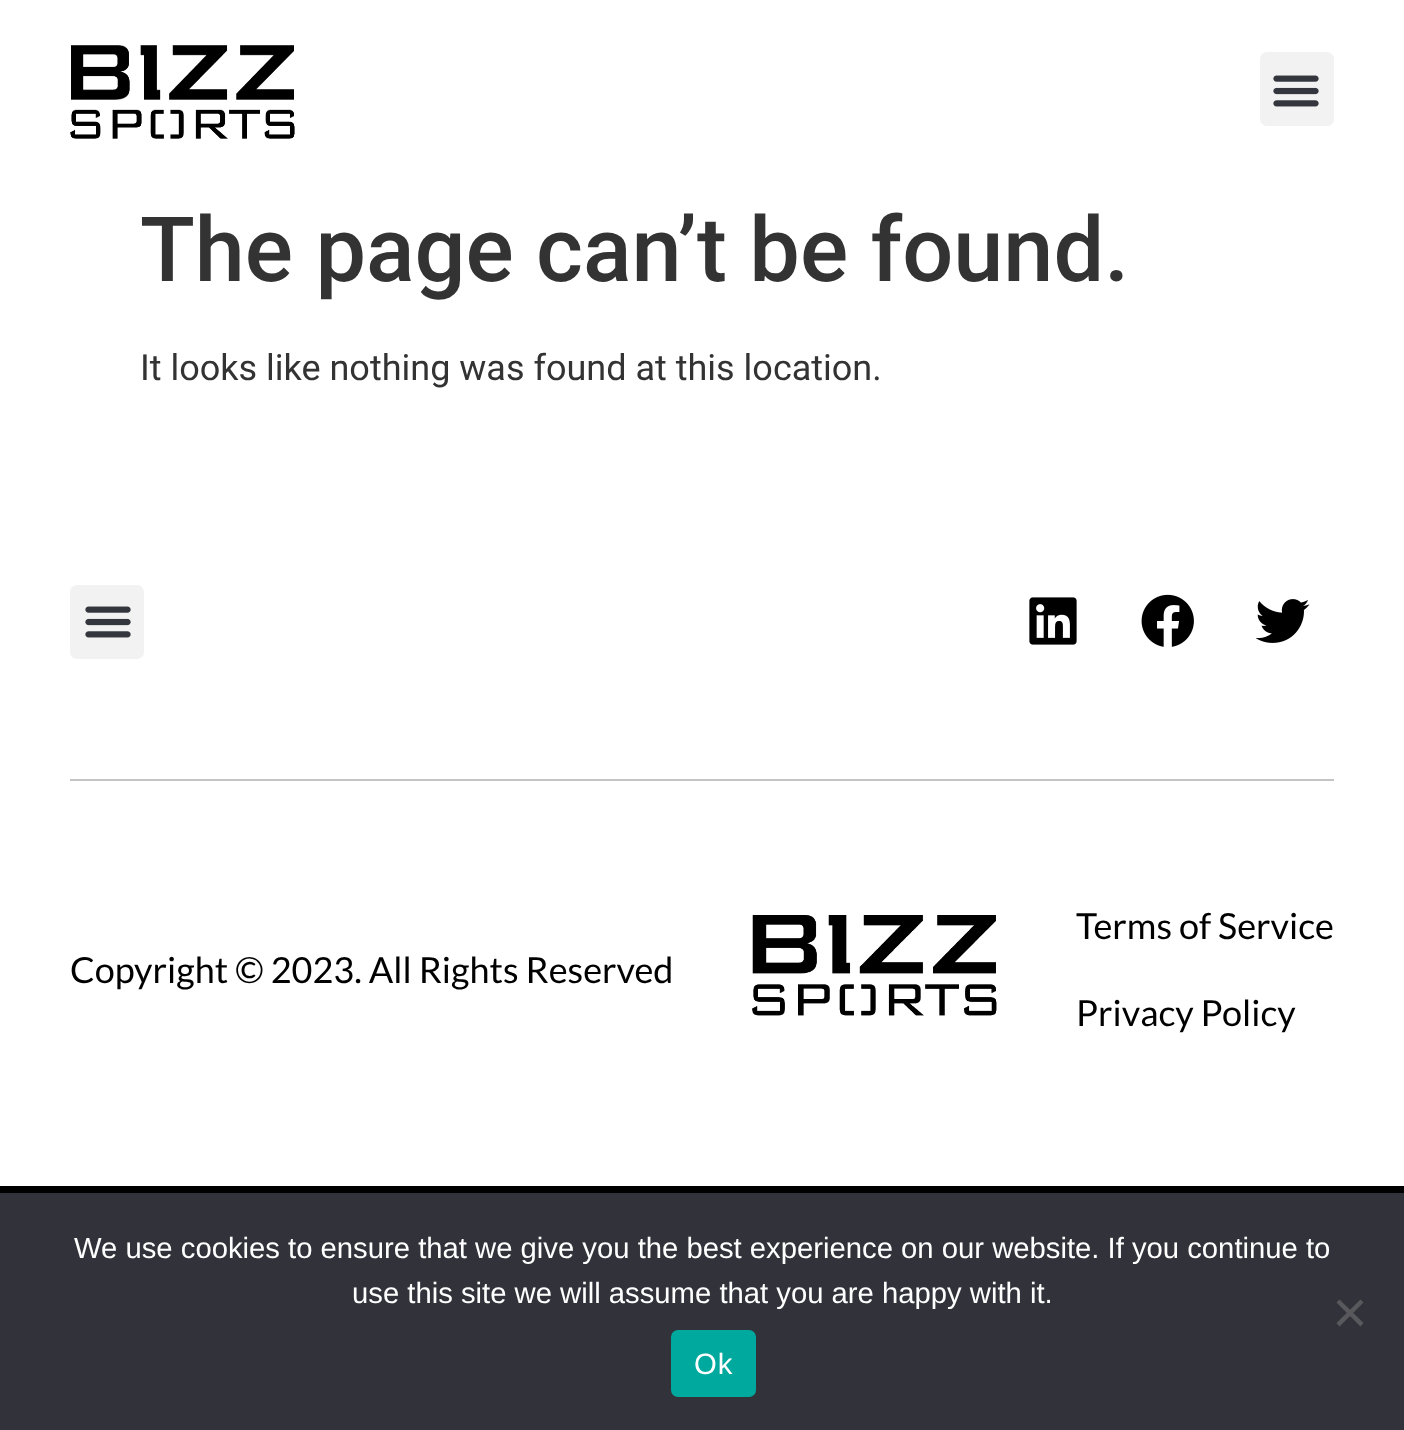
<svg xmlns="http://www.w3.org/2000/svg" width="1404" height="1430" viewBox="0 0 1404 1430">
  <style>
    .t1 { font: 500 90px Roboto; fill: #333; }
    .t2 { font: 36px Roboto; fill: #333; }
    .t3 { font: 36px Lato; fill: #000; }
    .t4 { font: 29.25px Liberation Sans; fill: #fff; }
    .t5 { font: 29.25px Liberation Sans; letter-spacing: 1px; fill: #fff; }
  </style>
  <rect width="100%" height="100%" fill="#fff"/>
  <image x="70" y="45" width="225" height="94" href="images/1.png"/>
  <rect x="1260" y="52" width="74" height="74" rx="7" fill="#f2f2f2"/>
  <image x="1273" y="75" width="46" height="32" href="images/2.png"/>
  <text x="140" y="281" class="t1">The page can’t be found.</text>
  <text x="140" y="380" class="t2">It looks like nothing was found at this location.</text>
  <rect x="70" y="585" width="74" height="74" rx="7" fill="#f2f2f2"/>
  <image x="85" y="606" width="46" height="32" href="images/2.png"/>
  <image x="1029" y="597" width="48" height="48" href="images/3.png"/>
  <image x="1141" y="594" width="53" height="53" href="images/4.png"/>
  <image x="1256" y="599" width="54" height="44" href="images/5.png"/>
  <rect x="70" y="779" width="1264" height="2" fill="#c4c4c4"/>
  <text x="70" y="983" class="t3">Copyright © 2023. All Rights Reserved</text>
  <image x="752" y="915" width="245" height="101" href="images/6.png"/>
  <text x="1076" y="939" class="t3">Terms of Service</text>
  <text x="1076" y="1026" class="t3">Privacy Policy</text>
  <rect x="0" y="1186" width="1404" height="7" fill="#000"/>
  <rect x="0" y="1193" width="1404" height="237" fill="#32323a"/>
  <text x="74" y="1258" class="t4">We use cookies to ensure that we give you the best experience on our website. If you continue to</text>
  <text x="352" y="1303" class="t4">use this site we will assume that you are happy with it.</text>
  <path d="M1360.5 1299.5L1363.5 1302.5L1339.5 1326.5L1336.5 1323Z" fill="#59595d"/>
  <path d="M1336.5 1302.5L1339.5 1299.5L1363.5 1323L1360.5 1326.5Z" fill="#59595d"/>
  <rect x="671" y="1330" width="85" height="67" rx="7" fill="#00a99d"/>
  <text x="694" y="1374" class="t5">Ok</text>
</svg>
